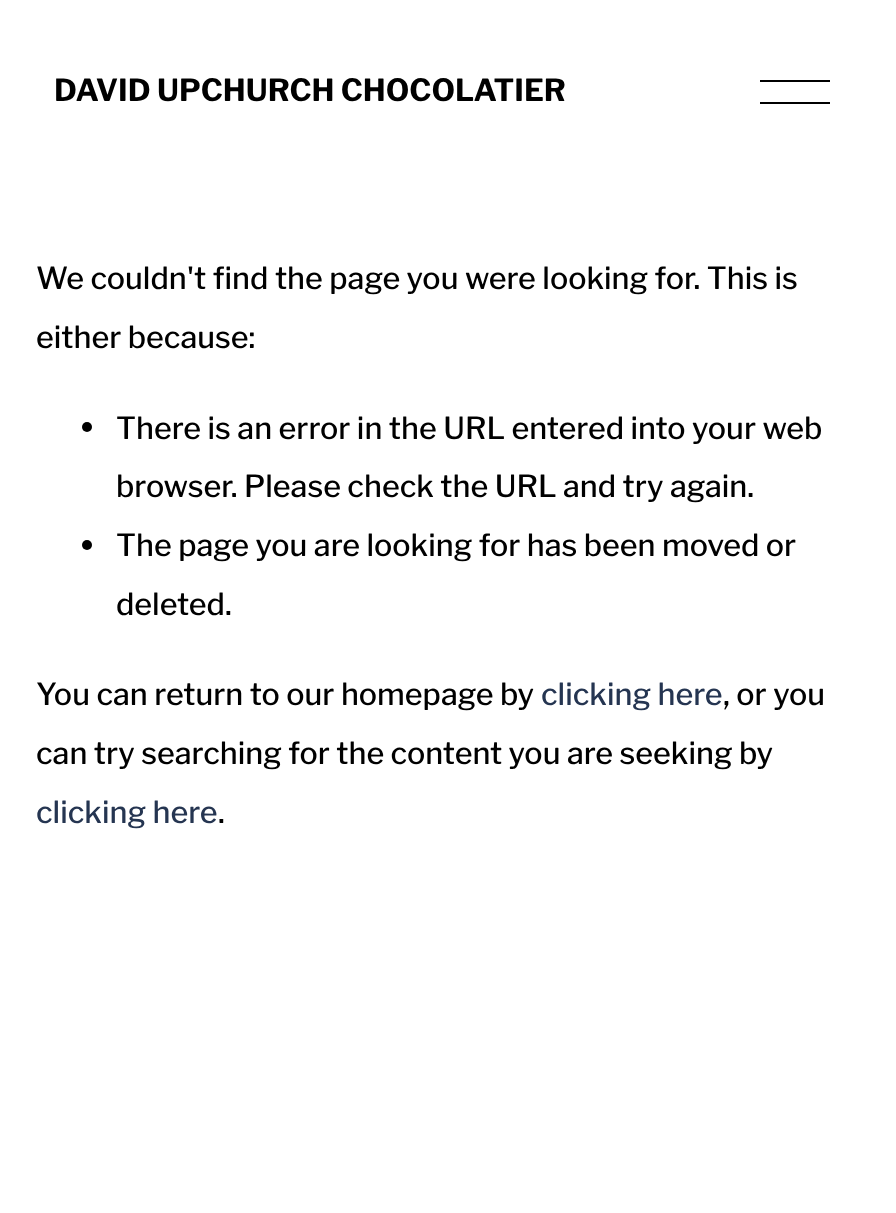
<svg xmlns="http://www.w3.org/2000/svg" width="896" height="1213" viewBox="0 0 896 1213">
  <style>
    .t1 { font: bold 30.5px Libre Franklin; fill: #000; }
    .t2 { font: 500 30.5px Libre Franklin; fill: #000; }
    .t3 { font: 500 30.5px Libre Franklin; fill: #253551; }
  </style>
  <rect width="100%" height="100%" fill="#fff"/>
  <text x="54" y="101" class="t1">DAVID UPCHURCH CHOCOLATIER</text>
  <rect x="760" y="80" width="70" height="2" fill="#000"/>
  <rect x="760" y="102" width="70" height="2" fill="#000"/>
  <text x="36" y="289" class="t2">We couldn't find the page you were looking for. This is</text>
  <text x="36" y="348" class="t2">either because:</text>
  <circle cx="87" cy="427" r="5" fill="#000"/>
  <text x="116" y="439" class="t2">There is an error in the URL entered into your web</text>
  <text x="116" y="497" class="t2">browser. Please check the URL and try again.</text>
  <circle cx="87" cy="545" r="5" fill="#000"/>
  <text x="116" y="556" class="t2">The page you are looking for has been moved or</text>
  <text x="116" y="615" class="t2">deleted.</text>
  <text x="36" y="705" class="t2">You can return to our homepage by</text>
  <text x="541" y="705" class="t3">clicking here</text>
  <text x="723" y="705" class="t2">, or you</text>
  <text x="36" y="764" class="t2">can try searching for the content you are seeking by</text>
  <text x="36" y="823" class="t3">clicking here</text>
  <text x="218" y="823" class="t2">.</text>
</svg>
